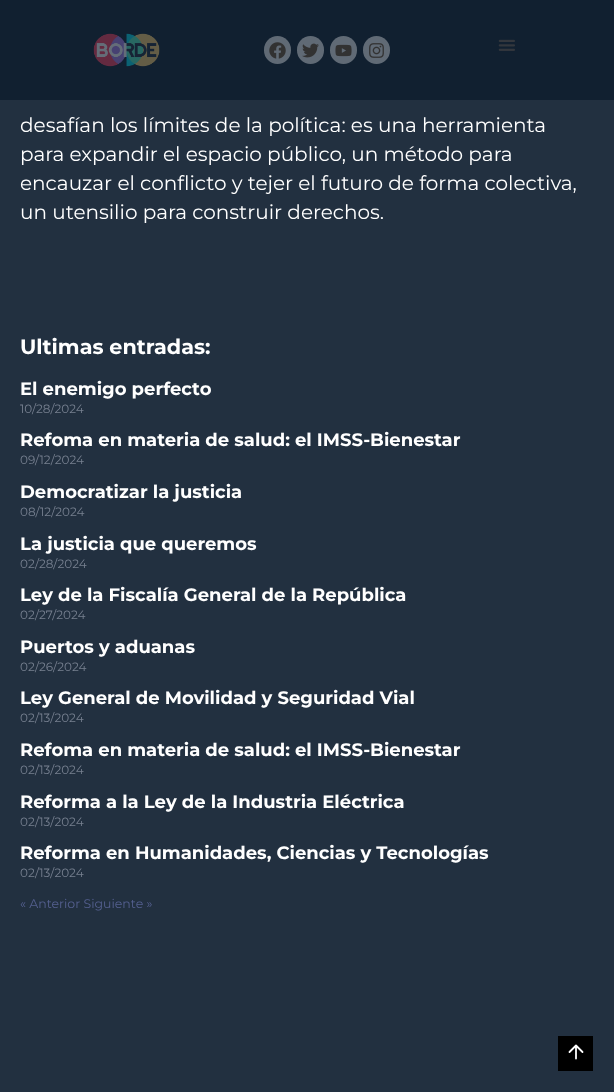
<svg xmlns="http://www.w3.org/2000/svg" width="614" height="1092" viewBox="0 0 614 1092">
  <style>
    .t1 { font: 20px Montserrat; fill: #fff; }
    .t2 { font: bold 20.75px Montserrat; fill: #fff; }
    .t3 { font: bold 18px Montserrat; fill: #fff; }
    .t4 { font: 12px Montserrat; fill: #778090; }
    .t5 { font: 12.5px Montserrat; fill: #556090; }
  </style>
  <rect width="100%" height="100%" fill="#223040"/>
  <rect x="0" y="0" width="614" height="100" fill="#112030"/>
  <image x="93" y="33" width="67" height="34" href="images/1.png"/>
  <rect x="264" y="36" width="27" height="28" rx="13.5" fill="#606a75"/>
  <image x="269" y="42" width="17" height="17" href="images/2.png"/>
  <rect x="297" y="36" width="27" height="28" rx="13.5" fill="#606a75"/>
  <image x="302" y="43" width="17" height="15" href="images/3.png"/>
  <rect x="330" y="36" width="27" height="28" rx="13.5" fill="#606a75"/>
  <image x="335" y="44" width="17" height="13" href="images/4.png"/>
  <rect x="363" y="36" width="27" height="28" rx="13.5" fill="#606a75"/>
  <image x="369" y="43" width="15" height="15" href="images/5.png"/>
  <image x="498" y="39" width="17" height="12" href="images/6.png"/>
  <text x="20" y="132" class="t1">desafían los límites de la política: es una herramienta</text>
  <text x="20" y="161" class="t1">para expandir el espacio público, un método para</text>
  <text x="20" y="190" class="t1">encauzar el conflicto y tejer el futuro de forma colectiva,</text>
  <text x="20" y="219" class="t1">un utensilio para construir derechos.</text>
  <text x="20" y="354" class="t2">Ultimas entradas:</text>
  <text x="20" y="395" class="t3">El enemigo perfecto</text>
  <text x="20" y="413" class="t4">10/28/2024</text>
  <text x="20" y="446" class="t3">Refoma en materia de salud: el IMSS-Bienestar</text>
  <text x="20" y="464" class="t4">09/12/2024</text>
  <text x="20" y="498" class="t3">Democratizar la justicia</text>
  <text x="20" y="516" class="t4">08/12/2024</text>
  <text x="20" y="550" class="t3">La justicia que queremos</text>
  <text x="20" y="568" class="t4">02/28/2024</text>
  <text x="20" y="601" class="t3">Ley de la Fiscalía General de la República</text>
  <text x="20" y="619" class="t4">02/27/2024</text>
  <text x="20" y="653" class="t3">Puertos y aduanas</text>
  <text x="20" y="671" class="t4">02/26/2024</text>
  <text x="20" y="704" class="t3">Ley General de Movilidad y Seguridad Vial</text>
  <text x="20" y="722" class="t4">02/13/2024</text>
  <text x="20" y="756" class="t3">Refoma en materia de salud: el IMSS-Bienestar</text>
  <text x="20" y="774" class="t4">02/13/2024</text>
  <text x="20" y="808" class="t3">Reforma a la Ley de la Industria Eléctrica</text>
  <text x="20" y="826" class="t4">02/13/2024</text>
  <text x="20" y="859" class="t3">Reforma en Humanidades, Ciencias y Tecnologías</text>
  <text x="20" y="877" class="t4">02/13/2024</text>
  <text x="20" y="908" class="t5">« Anterior Siguiente »</text>
  <rect x="558" y="1036" width="35" height="35" fill="#000"/>
  <path d="M576 1058.5V1045.5M569.5 1052L576 1045.5L582.5 1052" fill="none" stroke="#fff" stroke-width="1.8" stroke-linecap="round" stroke-linejoin="round"/>
</svg>
